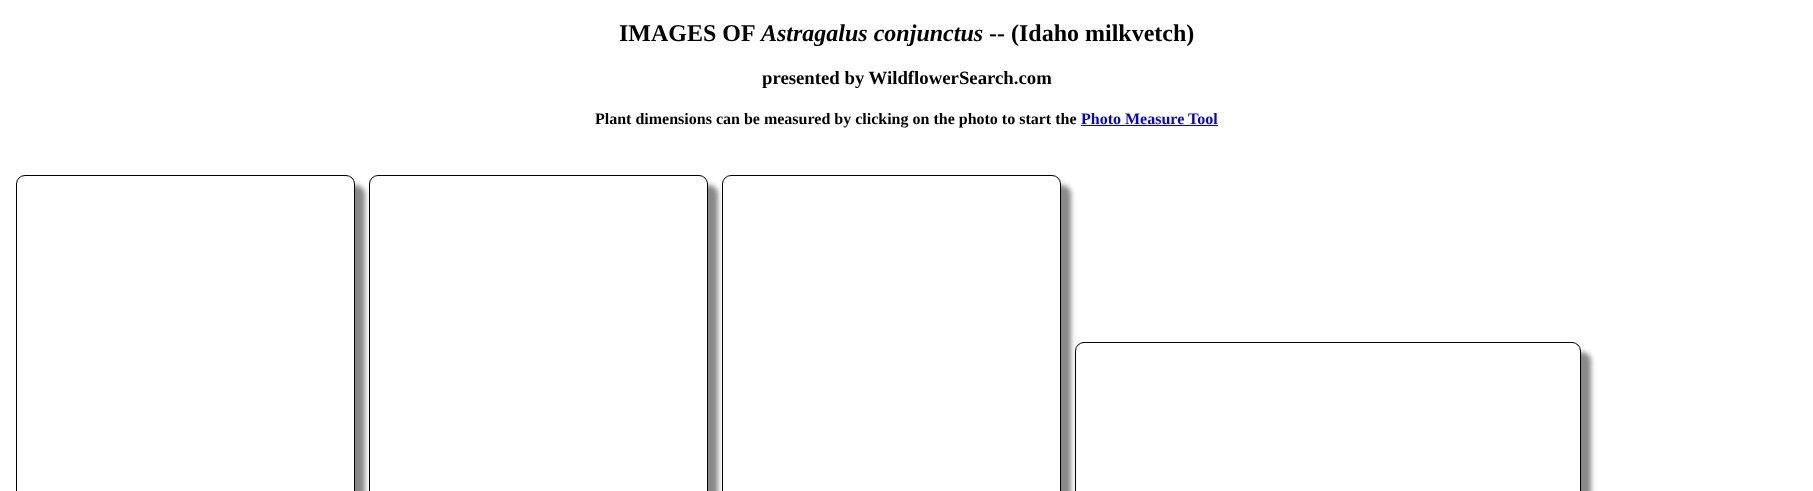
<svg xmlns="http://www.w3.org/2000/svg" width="1813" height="491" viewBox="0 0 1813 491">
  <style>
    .t1 { font: bold 24px Liberation Serif; fill: #000; }
    .t2 { font: italic bold 24px Liberation Serif; fill: #000; }
    .t3 { font: bold 18.75px Liberation Serif; fill: #000; }
    .t4 { font: bold 16px Liberation Serif; fill: #000; }
    .t5 { font: bold 16px Liberation Serif; fill: #00e; }
  </style>
  <defs>
    <clipPath id="clip1"><path d="M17 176H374V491H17ZM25 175H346C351 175 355 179 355 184V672C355 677 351 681 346 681H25C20 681 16 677 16 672V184C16 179 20 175 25 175Z" clip-rule="evenodd"/></clipPath>
    <clipPath id="clip2"><path d="M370 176H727V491H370ZM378 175H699C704 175 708 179 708 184V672C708 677 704 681 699 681H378C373 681 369 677 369 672V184C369 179 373 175 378 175Z" clip-rule="evenodd"/></clipPath>
    <clipPath id="clip3"><path d="M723 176H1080V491H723ZM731 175H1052C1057 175 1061 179 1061 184V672C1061 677 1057 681 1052 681H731C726 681 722 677 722 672V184C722 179 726 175 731 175Z" clip-rule="evenodd"/></clipPath>
    <clipPath id="clip4"><path d="M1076 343H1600V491H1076ZM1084 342H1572C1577 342 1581 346 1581 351V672C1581 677 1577 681 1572 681H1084C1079 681 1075 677 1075 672V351C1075 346 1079 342 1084 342Z" clip-rule="evenodd"/></clipPath>
  </defs>
  <rect width="100%" height="100%" fill="#fff"/>
  <text x="619" y="41" class="t1">IMAGES OF</text>
  <text x="761" y="41" class="t2">Astragalus conjunctus</text>
  <text x="989" y="41" class="t1">-- (Idaho milkvetch)</text>
  <text x="762" y="84" class="t3">presented by WildflowerSearch.com</text>
  <text x="595" y="124" class="t4">Plant dimensions can be measured by clicking on the photo to start the</text>
  <text x="1081" y="124" class="t5">Photo Measure Tool</text>
  <rect x="1081" y="125" width="137" height="1" fill="#00e"/>
  <g clip-path="url(#clip1)">
    <rect x="26" y="185" width="339" height="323" rx="9" fill="#888" filter="blur(2.5px)"/>
  </g>
  <rect x="16.5" y="175.5" width="338" height="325" rx="8.5" fill="none" stroke="#000"/>
  <g clip-path="url(#clip2)">
    <rect x="379" y="185" width="339" height="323" rx="9" fill="#888" filter="blur(2.5px)"/>
  </g>
  <rect x="369.5" y="175.5" width="338" height="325" rx="8.5" fill="none" stroke="#000"/>
  <g clip-path="url(#clip3)">
    <rect x="732" y="185" width="339" height="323" rx="9" fill="#888" filter="blur(2.5px)"/>
  </g>
  <rect x="722.5" y="175.5" width="338" height="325" rx="8.5" fill="none" stroke="#000"/>
  <g clip-path="url(#clip4)">
    <rect x="1085" y="352" width="506" height="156" rx="9" fill="#888" filter="blur(2.5px)"/>
  </g>
  <rect x="1075.5" y="342.5" width="505" height="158" rx="8.5" fill="none" stroke="#000"/>
</svg>
